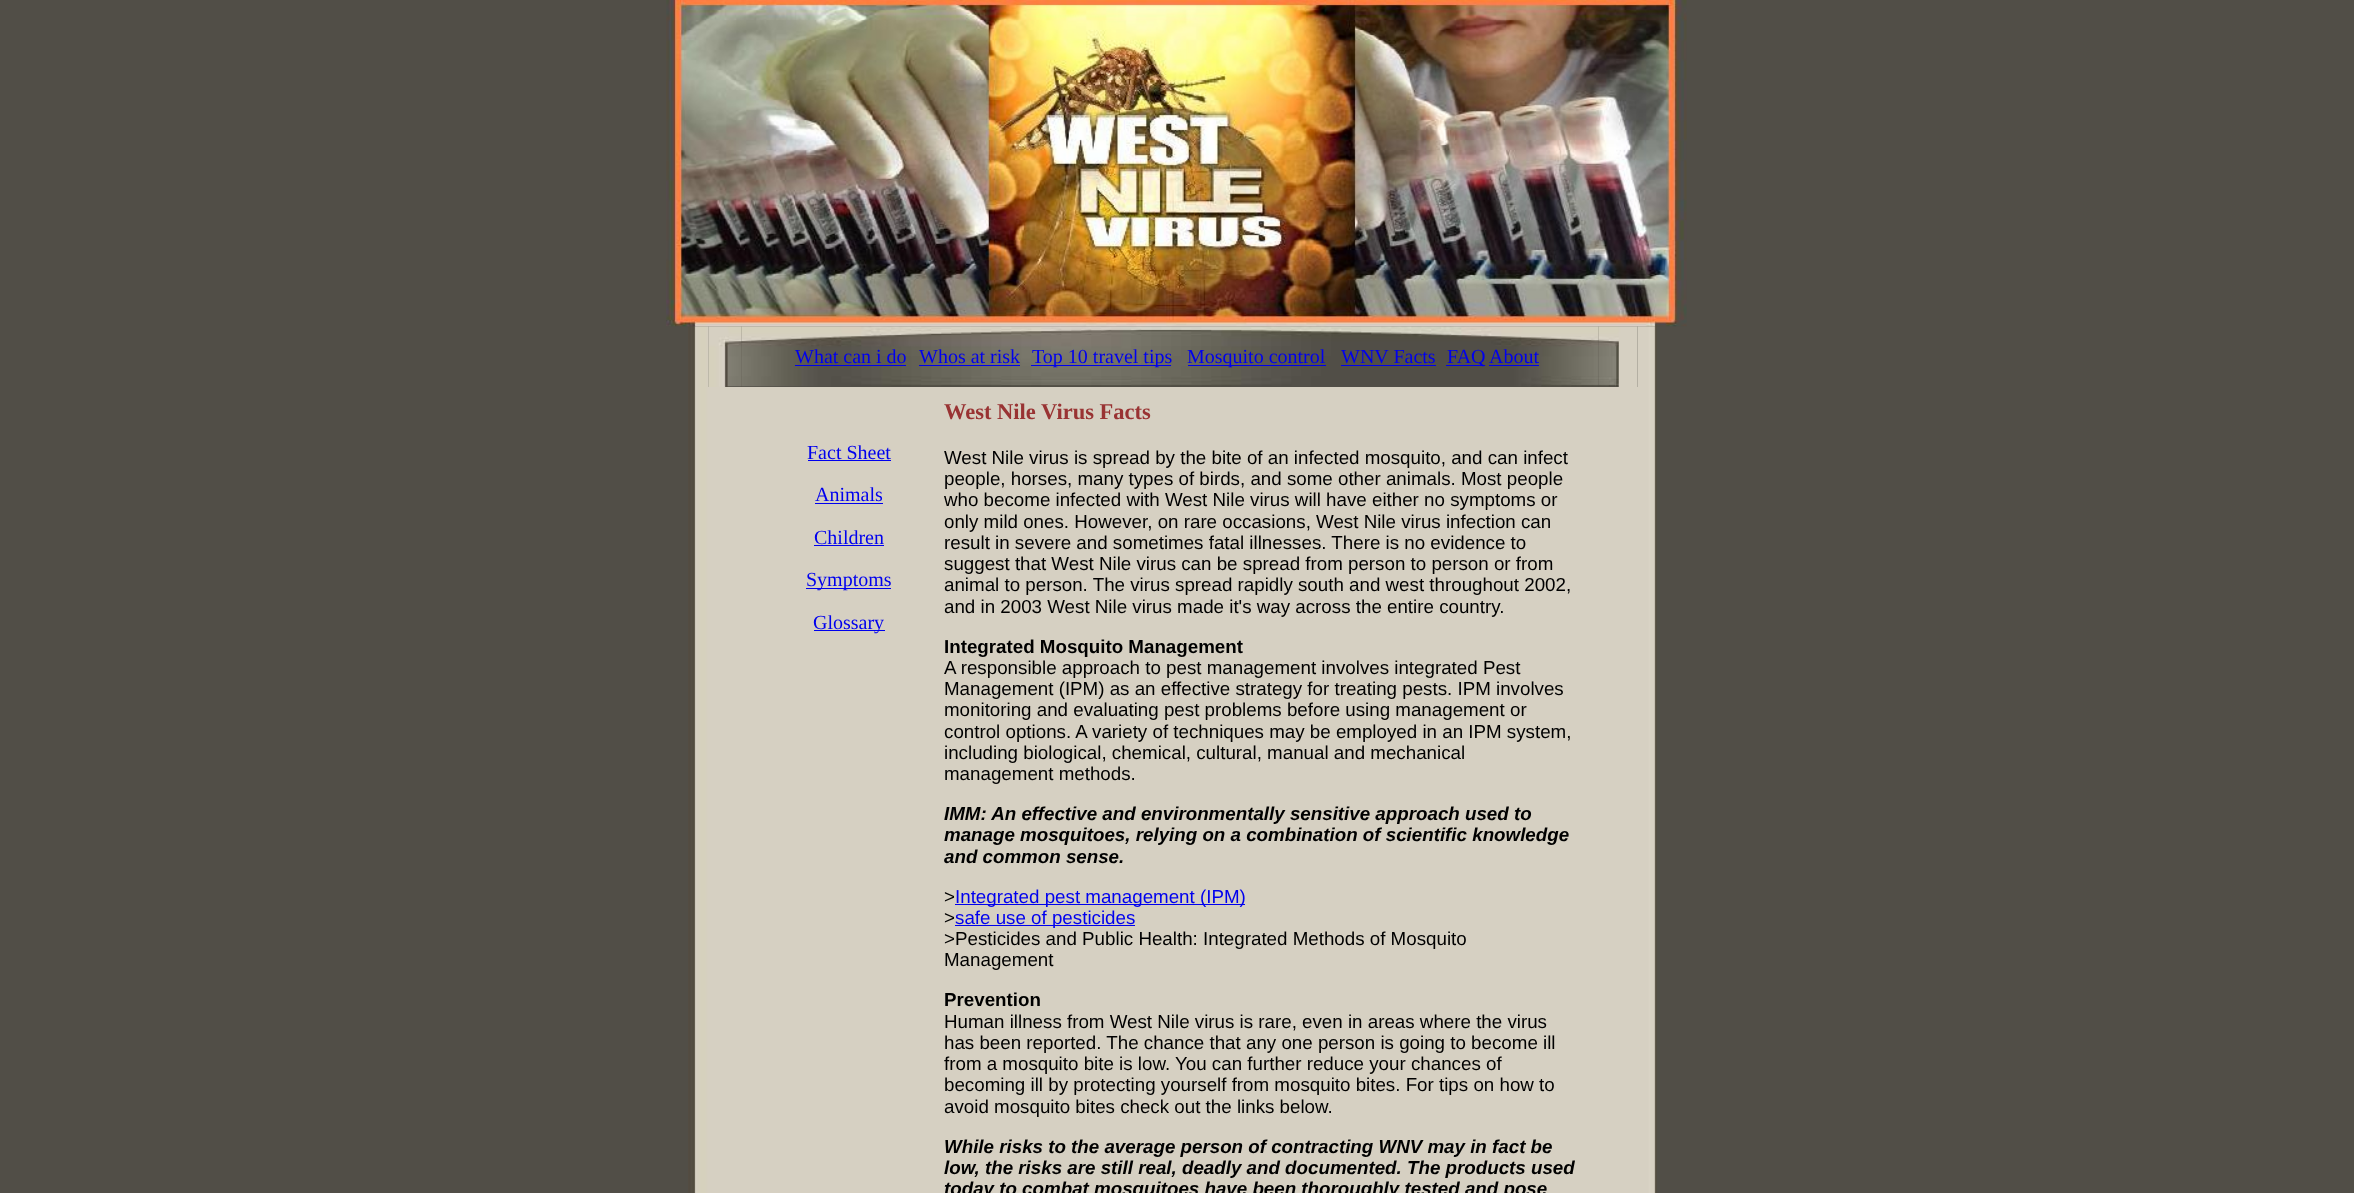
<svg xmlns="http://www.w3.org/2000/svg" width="2354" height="1193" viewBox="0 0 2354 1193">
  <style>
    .t1 { font: 20px Liberation Serif; fill: #00e; }
    .t2 { font: bold 22.5px Liberation Serif; fill: #933; }
    .t3 { font: 18.75px Liberation Sans; fill: #000; }
    .t4 { font: bold 18.75px Liberation Sans; fill: #000; }
    .t5 { font: italic bold 18.75px Liberation Sans; fill: #000; }
    .t6 { font: 18.75px Liberation Sans; fill: #00e; }
  </style>
  <rect width="100%" height="100%" fill="#514e47"/>
  <image x="688" y="326" width="21" height="867" href="images/2.png"/>
  <image x="741" y="326" width="858" height="61" href="images/4.png"/>
  <image x="1637" y="326" width="20" height="867" href="images/6.png"/>
  <image x="666" y="0" width="1021" height="327" href="images/1.png"/>
  <image x="708" y="326" width="34" height="61" href="images/3.png"/>
  <text x="795" y="363" class="t1">What can i do</text>
  <rect x="795" y="365" width="111" height="1" fill="#00e"/>
  <text x="919" y="363" class="t1">Whos at risk</text>
  <rect x="919" y="365" width="101" height="1" fill="#00e"/>
  <rect x="1031" y="365" width="140" height="1" fill="#00e"/>
  <text x="1032" y="363" class="t1">Top 10 travel tips</text>
  <rect x="1188" y="365" width="138" height="1" fill="#00e"/>
  <text x="1187" y="363" class="t1">Mosquito control</text>
  <text x="1341" y="363" class="t1">WNV Facts</text>
  <rect x="1341" y="365" width="95" height="1" fill="#00e"/>
  <rect x="1446" y="365" width="39" height="1" fill="#00e"/>
  <text x="1447" y="363" class="t1">FAQ</text>
  <text x="1489" y="363" class="t1">About</text>
  <rect x="1489" y="365" width="50" height="1" fill="#00e"/>
  <image x="1598" y="326" width="40" height="61" href="images/5.png"/>
  <rect x="708" y="387" width="930" height="806" fill="#d6d0c2"/>
  <text x="807" y="459" class="t1">Fact Sheet</text>
  <rect x="808" y="460" width="83" height="1" fill="#00e"/>
  <text x="815" y="501" class="t1">Animals</text>
  <rect x="815" y="503" width="68" height="1" fill="#00e"/>
  <text x="814" y="544" class="t1">Children</text>
  <rect x="814" y="545" width="70" height="1" fill="#00e"/>
  <rect x="806" y="588" width="85" height="1" fill="#00e"/>
  <text x="806" y="586" class="t1">Symptoms</text>
  <rect x="814" y="630" width="71" height="1" fill="#00e"/>
  <text x="813" y="629" class="t1">Glossary</text>
  <text x="944" y="419" class="t2">West Nile Virus Facts</text>
  <text x="944" y="464" class="t3">West Nile virus is spread by the bite of an infected mosquito, and can infect</text>
  <text x="944" y="485" class="t3">people, horses, many types of birds, and some other animals. Most people</text>
  <text x="944" y="506" class="t3">who become infected with West Nile virus will have either no symptoms or</text>
  <text x="944" y="528" class="t3">only mild ones. However, on rare occasions, West Nile virus infection can</text>
  <text x="944" y="549" class="t3">result in severe and sometimes fatal illnesses. There is no evidence to</text>
  <text x="944" y="570" class="t3">suggest that West Nile virus can be spread from person to person or from</text>
  <text x="944" y="591" class="t3">animal to person. The virus spread rapidly south and west throughout 2002,</text>
  <text x="944" y="613" class="t3">and in 2003 West Nile virus made it's way across the entire country.</text>
  <text x="944" y="653" class="t4">Integrated Mosquito Management</text>
  <text x="944" y="674" class="t3">A responsible approach to pest management involves integrated Pest</text>
  <text x="944" y="695" class="t3">Management (IPM) as an effective strategy for treating pests. IPM involves</text>
  <text x="944" y="716" class="t3">monitoring and evaluating pest problems before using management or</text>
  <text x="944" y="738" class="t3">control options. A variety of techniques may be employed in an IPM system,</text>
  <text x="944" y="759" class="t3">including biological, chemical, cultural, manual and mechanical</text>
  <text x="944" y="780" class="t3">management methods.</text>
  <text x="944" y="820" class="t5">IMM: An effective and environmentally sensitive approach used to</text>
  <text x="944" y="841" class="t5">manage mosquitoes, relying on a combination of scientific knowledge</text>
  <text x="944" y="863" class="t5">and common sense.</text>
  <text x="944" y="903" class="t3">&gt;</text>
  <rect x="955" y="904" width="290" height="1" fill="#00e"/>
  <text x="955" y="903" class="t6">Integrated pest management (IPM)</text>
  <text x="944" y="924" class="t3">&gt;</text>
  <rect x="955" y="925" width="180" height="1" fill="#00e"/>
  <text x="955" y="924" class="t6">safe use of pesticides</text>
  <text x="944" y="945" class="t3">&gt;Pesticides and Public Health: Integrated Methods of Mosquito</text>
  <text x="944" y="966" class="t3">Management</text>
  <text x="944" y="1006" class="t4">Prevention</text>
  <text x="944" y="1028" class="t3">Human illness from West Nile virus is rare, even in areas where the virus</text>
  <text x="944" y="1049" class="t3">has been reported. The chance that any one person is going to become ill</text>
  <text x="944" y="1070" class="t3">from a mosquito bite is low. You can further reduce your chances of</text>
  <text x="944" y="1091" class="t3">becoming ill by protecting yourself from mosquito bites. For tips on how to</text>
  <text x="944" y="1113" class="t3">avoid mosquito bites check out the links below.</text>
  <text x="944" y="1153" class="t5">While risks to the average person of contracting WNV may in fact be</text>
  <text x="944" y="1174" class="t5">low, the risks are still real, deadly and documented. The products used</text>
  <text x="944" y="1195" class="t5">today to combat mosquitoes have been thoroughly tested and pose</text>
</svg>
